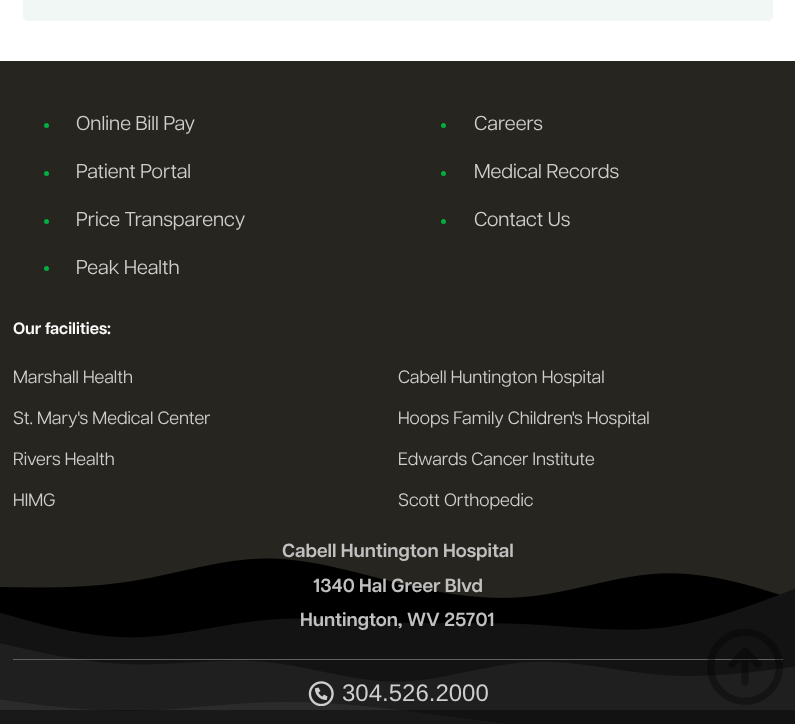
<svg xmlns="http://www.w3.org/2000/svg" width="795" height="724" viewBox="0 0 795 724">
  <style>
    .t1 { font: 20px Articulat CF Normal; fill: #cecece; }
    .t2 { font: 600 16.5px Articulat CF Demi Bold; fill: #fafafa; }
    .t3 { font: 18px Articulat CF Normal; fill: #cecece; }
    .t4 { font: 600 19px Articulat CF Demi Bold; fill: #c0c0c0; }
    .t5 { font: 24px Liberation Sans; fill: #cecece; }
  </style>
  <rect width="100%" height="100%" fill="#fff"/>
  <rect x="23" y="-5" width="750" height="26" rx="5" fill="#f1f7f4"/>
  <rect x="0" y="61" width="795" height="537" fill="#27251f"/>
  <image x="0" y="558" width="795" height="166" href="images/1.png"/>
  <circle cx="46.5" cy="125.5" r="2.5" fill="#00ae41"/>
  <text x="76" y="130" class="t1">Online Bill Pay</text>
  <circle cx="46.5" cy="173.5" r="2.5" fill="#00ae41"/>
  <text x="76" y="178" class="t1">Patient Portal</text>
  <circle cx="46.5" cy="221.5" r="2.5" fill="#00ae41"/>
  <text x="76" y="226" class="t1">Price Transparency</text>
  <circle cx="46.5" cy="268.5" r="2.5" fill="#00ae41"/>
  <text x="76" y="274" class="t1">Peak Health</text>
  <circle cx="443.5" cy="125.5" r="2.5" fill="#00ae41"/>
  <text x="474" y="130" class="t1">Careers</text>
  <circle cx="443.5" cy="173.5" r="2.5" fill="#00ae41"/>
  <text x="474" y="178" class="t1">Medical Records</text>
  <circle cx="443.5" cy="221.5" r="2.5" fill="#00ae41"/>
  <text x="474" y="226" class="t1">Contact Us</text>
  <text x="13" y="334" class="t2">Our facilities:</text>
  <text x="13" y="383" class="t3">Marshall Health</text>
  <text x="398" y="383" class="t3">Cabell Huntington Hospital</text>
  <text x="13" y="424" class="t3">St. Mary's Medical Center</text>
  <text x="398" y="424" class="t3">Hoops Family Children's Hospital</text>
  <text x="13" y="465" class="t3">Rivers Health</text>
  <text x="398" y="465" class="t3">Edwards Cancer Institute</text>
  <text x="13" y="506" class="t3">HIMG</text>
  <text x="398" y="506" class="t3">Scott Orthopedic</text>
  <text x="282" y="557" class="t4">Cabell Huntington Hospital</text>
  <text x="313" y="592" class="t4">1340 Hal Greer Blvd</text>
  <text x="300" y="626" class="t4">Huntington, WV 25701</text>
  <rect x="13" y="659" width="770" height="1" fill="#606060"/>
  <image x="308" y="681" width="26" height="25" href="images/2.png"/>
  <text x="342" y="701" class="t5">304.526.2000</text>
  <rect x="0" y="710" width="795" height="14" fill="#00000066"/>
  <image x="707" y="629" width="76" height="76" href="images/3.png"/>
</svg>
